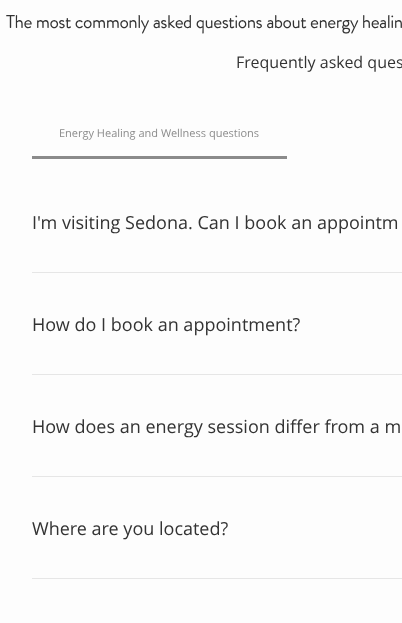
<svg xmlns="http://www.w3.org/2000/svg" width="402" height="623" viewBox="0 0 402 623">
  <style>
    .t1 { font: bold 18px 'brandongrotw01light'; fill: #333; }
    .t2 { font: 16px Open Sans; fill: #333; }
    .t3 { font: 11px Open Sans; fill: #8b8b8b; }
    .t4 { font: 18px Open Sans; fill: #333; }
  </style>
  <rect width="100%" height="100%" fill="#fdfdfd"/>
  <text x="6" y="28" class="t1">The most commonly asked questions about energy healin</text>
  <text x="236" y="68" class="t2">Frequently asked ques</text>
  <rect x="32" y="156" width="255" height="3" fill="#8b8b8b"/>
  <text x="59" y="137" class="t3">Energy Healing and Wellness questions</text>
  <text x="32" y="229" class="t4">I'm visiting Sedona. Can I book an appointm</text>
  <rect x="32" y="272" width="370" height="1" fill="#e6e6e6"/>
  <text x="32" y="331" class="t4">How do I book an appointment?</text>
  <rect x="32" y="374" width="370" height="1" fill="#e6e6e6"/>
  <text x="32" y="433" class="t4">How does an energy session differ from a m</text>
  <rect x="32" y="476" width="370" height="1" fill="#e6e6e6"/>
  <text x="32" y="535" class="t4">Where are you located?</text>
  <rect x="32" y="578" width="370" height="1" fill="#e6e6e6"/>
</svg>
